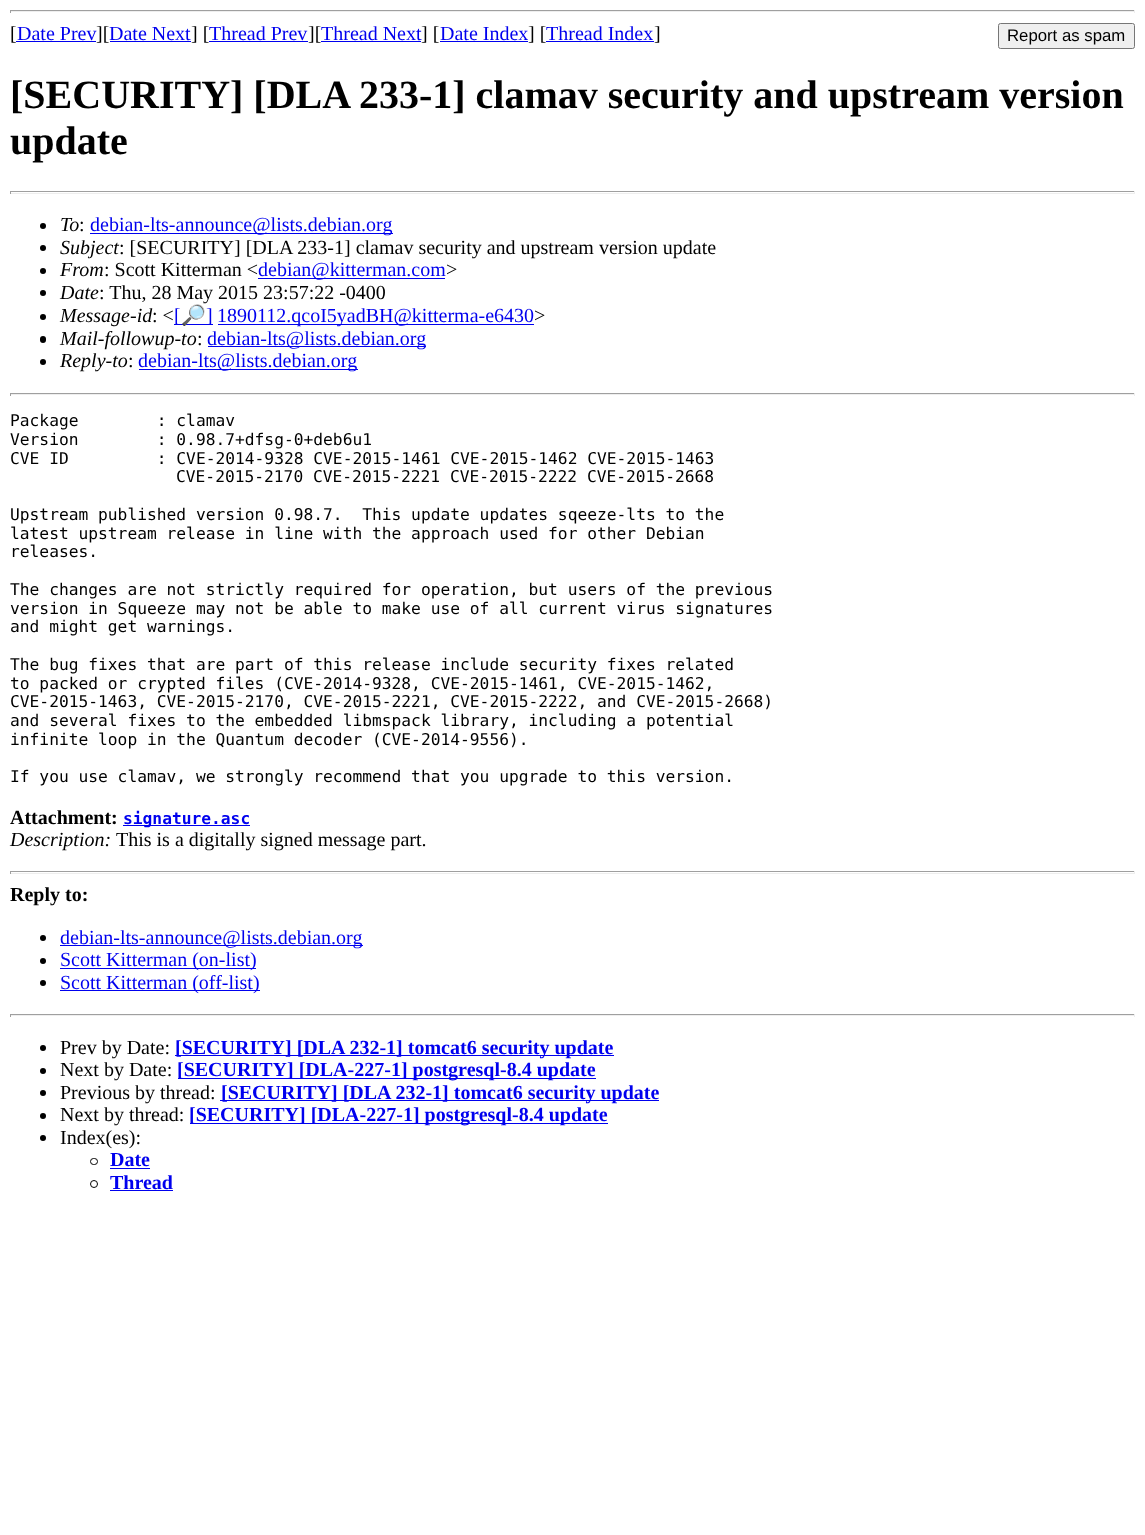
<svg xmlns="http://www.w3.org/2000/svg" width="1145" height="1535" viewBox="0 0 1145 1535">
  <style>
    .t1 { font: 20px Liberation Serif; fill: #000; }
    .t2 { font: 20px Liberation Serif; fill: #00e; }
    .t3 { font: 16.75px Liberation Sans; fill: #000; }
    .t4 { font: bold 40px Liberation Serif; fill: #000; }
    .t5 { font: italic 20px Liberation Serif; fill: #000; }
    .t6 { font: 20px Noto Color Emoji; fill: #00e; }
    .t7 { font: 16.25px DejaVu Sans Mono; fill: #000; }
    .t8 { font: bold 20px Liberation Serif; fill: #000; }
    .t9 { font: bold 16.25px DejaVu Sans Mono; fill: #00e; }
    .t10 { font: bold 20px Liberation Serif; fill: #00e; }
  </style>
  <rect width="100%" height="100%" fill="#fff"/>
  <rect x="10" y="10" width="1125" height="1" fill="#9f9f9f"/>
  <rect x="1134" y="10" width="1" height="3" fill="#eee"/>
  <rect x="10" y="11" width="1125" height="1" fill="#eee"/>
  <rect x="10" y="10" width="1" height="3" fill="#9f9f9f"/>
  <text x="10" y="40" class="t1">[</text>
  <text x="17" y="40" class="t2">Date Prev</text>
  <rect x="16" y="41" width="80" height="1" fill="#00e"/>
  <text x="96" y="40" class="t1">][</text>
  <text x="109" y="40" class="t2">Date Next</text>
  <rect x="110" y="41" width="81" height="1" fill="#00e"/>
  <text x="191" y="40" class="t1">] [</text>
  <text x="209" y="40" class="t2">Thread Prev</text>
  <rect x="209" y="41" width="99" height="1" fill="#00e"/>
  <text x="308" y="40" class="t1">][</text>
  <text x="321" y="40" class="t2">Thread Next</text>
  <rect x="321" y="41" width="100" height="1" fill="#00e"/>
  <text x="421" y="40" class="t1">] [</text>
  <text x="440" y="40" class="t2">Date Index</text>
  <rect x="440" y="41" width="88" height="1" fill="#00e"/>
  <text x="528" y="40" class="t1">] [</text>
  <text x="546" y="40" class="t2">Thread Index</text>
  <rect x="546" y="41" width="108" height="1" fill="#00e"/>
  <text x="654" y="40" class="t1">]</text>
  <rect x="998.5" y="23.5" width="136" height="25" rx="2" fill="#efefef" stroke="#767676"/>
  <text x="1007" y="41" class="t3">Report as spam</text>
  <text x="10" y="108" class="t4">[SECURITY] [DLA 233-1] clamav security and upstream version</text>
  <text x="10" y="154" class="t4">update</text>
  <rect x="10" y="191" width="1125" height="1" fill="#9f9f9f"/>
  <rect x="1134" y="191" width="1" height="3" fill="#eee"/>
  <rect x="10" y="193" width="1125" height="1" fill="#eee"/>
  <rect x="10" y="191" width="1" height="3" fill="#9f9f9f"/>
  <circle cx="43" cy="226" r="3" fill="#000"/>
  <text x="60" y="231" class="t5">To</text>
  <text x="79" y="231" class="t1">:</text>
  <rect x="90" y="233" width="303" height="1" fill="#00e"/>
  <text x="90" y="231" class="t2">debian-lts-announce@lists.debian.org</text>
  <circle cx="43" cy="248" r="3" fill="#000"/>
  <text x="60" y="254" class="t5">Subject</text>
  <text x="119" y="254" class="t1">: [SECURITY] [DLA 233-1] clamav security and upstream version update</text>
  <circle cx="43" cy="271" r="3" fill="#000"/>
  <text x="60" y="276" class="t5">From</text>
  <text x="104" y="276" class="t1">: Scott Kitterman &lt;</text>
  <rect x="258" y="278" width="187" height="1" fill="#00e"/>
  <text x="258" y="276" class="t2">debian@kitterman.com</text>
  <text x="446" y="276" class="t1">&gt;</text>
  <circle cx="43" cy="293" r="3" fill="#000"/>
  <text x="60" y="299" class="t5">Date</text>
  <text x="99" y="299" class="t1">: Thu, 28 May 2015 23:57:22 -0400</text>
  <circle cx="43" cy="317" r="3" fill="#000"/>
  <text x="60" y="322" class="t5">Message-id</text>
  <text x="152" y="322" class="t1">: &lt;</text>
  <rect x="174" y="324" width="39" height="1" fill="#00e"/>
  <text x="174" y="322" class="t2">[</text>
  <text x="181" y="322" class="t6">🔎</text>
  <text x="206" y="322" class="t2">]</text>
  <rect x="218" y="324" width="316" height="1" fill="#00e"/>
  <text x="217" y="322" class="t2">1890112.qcoI5yadBH@kitterma-e6430</text>
  <text x="534" y="322" class="t1">&gt;</text>
  <rect x="40" y="336" width="6" height="7" rx="3" fill="#000"/>
  <text x="60" y="345" class="t5">Mail-followup-to</text>
  <text x="197" y="345" class="t1">:</text>
  <rect x="208" y="346" width="218" height="1" fill="#00e"/>
  <text x="207" y="345" class="t2">debian-lts@lists.debian.org</text>
  <circle cx="43" cy="362" r="3" fill="#000"/>
  <text x="60" y="367" class="t5">Reply-to</text>
  <text x="128" y="367" class="t1">:</text>
  <rect x="139" y="369" width="219" height="1" fill="#00e"/>
  <text x="138" y="367" class="t2">debian-lts@lists.debian.org</text>
  <rect x="10" y="393" width="1125" height="1" fill="#9f9f9f"/>
  <rect x="1134" y="393" width="1" height="3" fill="#eee"/>
  <rect x="10" y="394" width="1125" height="1" fill="#eee"/>
  <rect x="10" y="393" width="1" height="3" fill="#9f9f9f"/>
  <text x="10" y="426" class="t7" xml:space="preserve">Package        : clamav</text>
  <text x="10" y="445" class="t7" xml:space="preserve">Version        : 0.98.7+dfsg-0+deb6u1</text>
  <text x="10" y="464" class="t7" xml:space="preserve">CVE ID         : CVE-2014-9328 CVE-2015-1461 CVE-2015-1462 CVE-2015-1463</text>
  <text x="176" y="482" class="t7">CVE-2015-2170 CVE-2015-2221 CVE-2015-2222 CVE-2015-2668</text>
  <text x="10" y="520" class="t7" xml:space="preserve">Upstream published version 0.98.7.  This update updates sqeeze-lts to the</text>
  <text x="10" y="539" class="t7">latest upstream release in line with the approach used for other Debian</text>
  <text x="10" y="557" class="t7">releases.</text>
  <text x="10" y="595" class="t7">The changes are not strictly required for operation, but users of the previous</text>
  <text x="10" y="614" class="t7">version in Squeeze may not be able to make use of all current virus signatures</text>
  <text x="10" y="632" class="t7">and might get warnings.</text>
  <text x="10" y="670" class="t7">The bug fixes that are part of this release include security fixes related</text>
  <text x="10" y="689" class="t7">to packed or crypted files (CVE-2014-9328, CVE-2015-1461, CVE-2015-1462,</text>
  <text x="10" y="707" class="t7">CVE-2015-1463, CVE-2015-2170, CVE-2015-2221, CVE-2015-2222, and CVE-2015-2668)</text>
  <text x="10" y="726" class="t7">and several fixes to the embedded libmspack library, including a potential</text>
  <text x="10" y="745" class="t7">infinite loop in the Quantum decoder (CVE-2014-9556).</text>
  <text x="10" y="782" class="t7">If you use clamav, we strongly recommend that you upgrade to this version.</text>
  <text x="10" y="824" class="t8">Attachment:</text>
  <rect x="123" y="825" width="127" height="1" fill="#00e"/>
  <text x="123" y="824" class="t9">signature.asc</text>
  <text x="10" y="846" class="t5">Description:</text>
  <text x="116" y="846" class="t1">This is a digitally signed message part.</text>
  <rect x="10" y="871" width="1125" height="1" fill="#9f9f9f"/>
  <rect x="1134" y="871" width="1" height="3" fill="#eee"/>
  <rect x="10" y="873" width="1125" height="1" fill="#eee"/>
  <rect x="10" y="871" width="1" height="3" fill="#9f9f9f"/>
  <text x="10" y="901" class="t8">Reply to:</text>
  <circle cx="43" cy="938" r="3" fill="#000"/>
  <rect x="60" y="945" width="303" height="1" fill="#00e"/>
  <text x="60" y="944" class="t2">debian-lts-announce@lists.debian.org</text>
  <circle cx="43" cy="961" r="3" fill="#000"/>
  <rect x="60" y="968" width="196" height="1" fill="#00e"/>
  <text x="60" y="966" class="t2">Scott Kitterman (on-list)</text>
  <circle cx="43" cy="983" r="3" fill="#000"/>
  <rect x="60" y="990" width="200" height="1" fill="#00e"/>
  <text x="60" y="989" class="t2">Scott Kitterman (off-list)</text>
  <rect x="10" y="1014" width="1125" height="1" fill="#9f9f9f"/>
  <rect x="1134" y="1014" width="1" height="3" fill="#eee"/>
  <rect x="10" y="1015" width="1125" height="1" fill="#eee"/>
  <rect x="10" y="1014" width="1" height="3" fill="#9f9f9f"/>
  <circle cx="43" cy="1048" r="3" fill="#000"/>
  <text x="60" y="1054" class="t1">Prev by Date:</text>
  <rect x="175" y="1055" width="439" height="1" fill="#00e"/>
  <text x="175" y="1054" class="t10">[SECURITY] [DLA 232-1] tomcat6 security update</text>
  <circle cx="43" cy="1071" r="3" fill="#000"/>
  <text x="60" y="1076" class="t1">Next by Date:</text>
  <rect x="178" y="1078" width="418" height="1" fill="#00e"/>
  <text x="177" y="1076" class="t10">[SECURITY] [DLA-227-1] postgresql-8.4 update</text>
  <circle cx="43" cy="1093" r="3" fill="#000"/>
  <text x="60" y="1099" class="t1">Previous by thread:</text>
  <rect x="220" y="1100" width="439" height="1" fill="#00e"/>
  <text x="221" y="1099" class="t10">[SECURITY] [DLA 232-1] tomcat6 security update</text>
  <circle cx="43" cy="1116" r="3" fill="#000"/>
  <text x="60" y="1121" class="t1">Next by thread:</text>
  <rect x="190" y="1123" width="418" height="1" fill="#00e"/>
  <text x="189" y="1121" class="t10">[SECURITY] [DLA-227-1] postgresql-8.4 update</text>
  <circle cx="43" cy="1138" r="3" fill="#000"/>
  <text x="60" y="1144" class="t1">Index(es):</text>
  <rect x="90.5" y="1158.5" width="7" height="6" rx="3" fill="none" stroke="#000"/>
  <text x="110" y="1166" class="t10">Date</text>
  <rect x="110" y="1168" width="40" height="1" fill="#00e"/>
  <circle cx="94" cy="1184" r="3.5" fill="none" stroke="#000"/>
  <text x="110" y="1189" class="t10">Thread</text>
  <rect x="110" y="1190" width="63" height="1" fill="#00e"/>
</svg>
